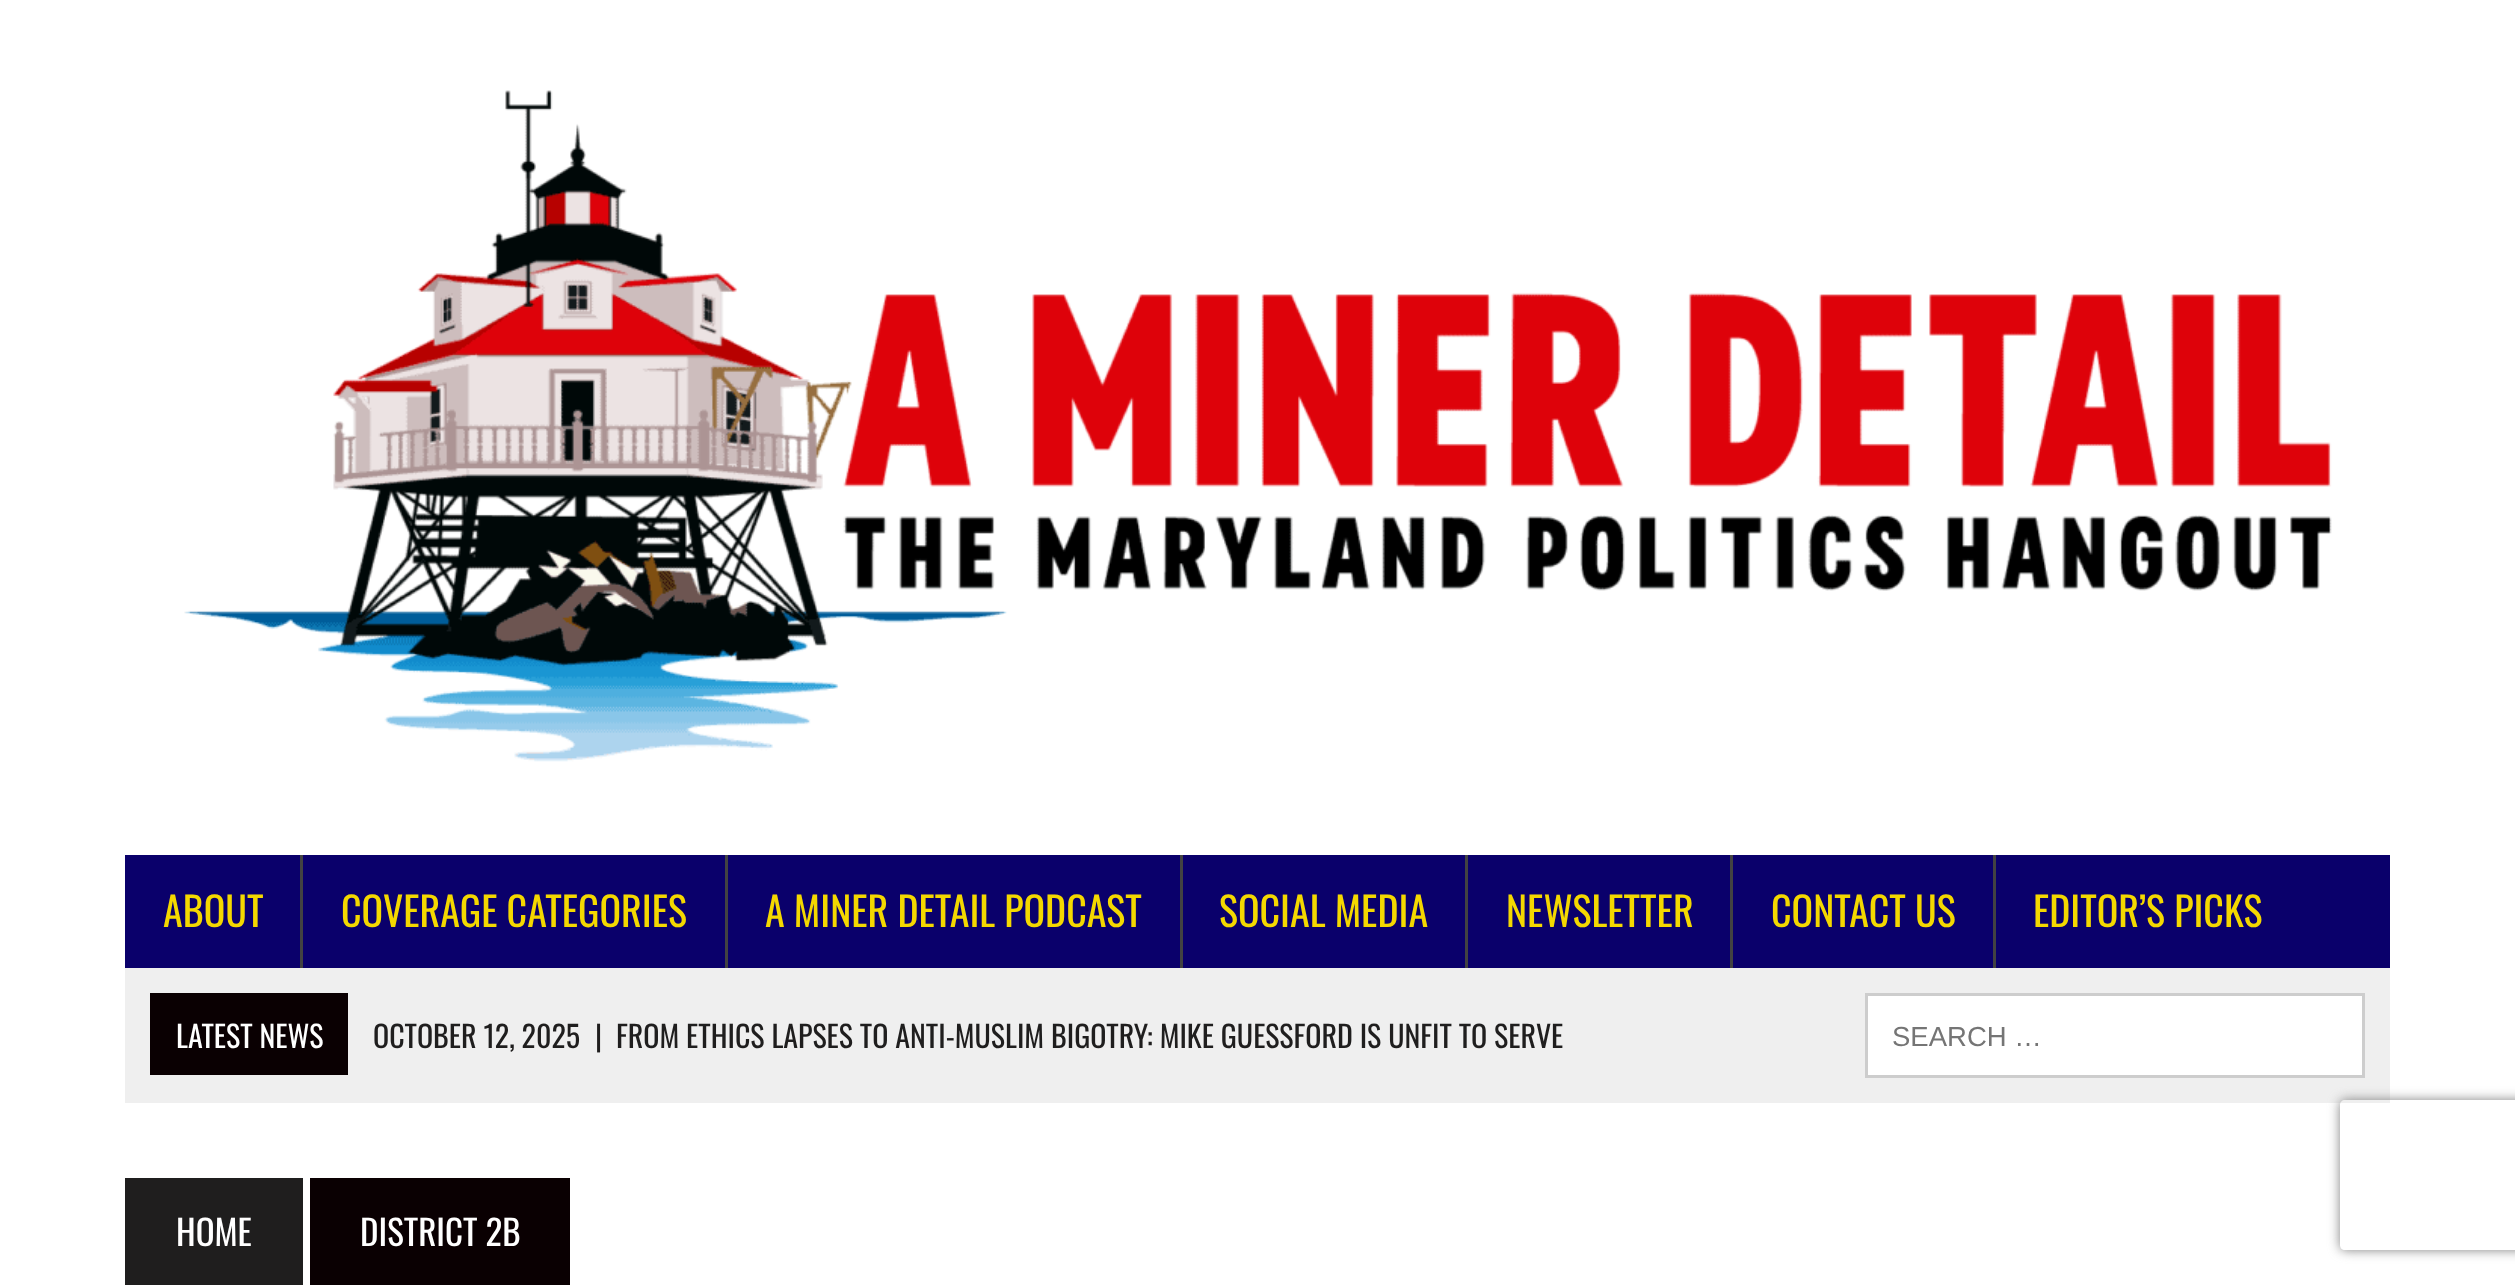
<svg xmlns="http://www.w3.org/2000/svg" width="2515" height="1285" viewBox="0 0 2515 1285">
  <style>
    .t1 { font: 40px Oswald; fill: #f4d800; }
    .t2 { font: 30px Oswald; fill: #fff; }
    .t3 { font: 30px Oswald; fill: #1f1e1e; }
    .t4 { font: 27.5px Liberation Sans; fill: #757575; }
    .t5 { font: 35px Oswald; fill: #fff; }
  </style>
  <defs>
    <clipPath id="clip1"><path d="M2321 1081H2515V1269H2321ZM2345 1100H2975C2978 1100 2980 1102 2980 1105V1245C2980 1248 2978 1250 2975 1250H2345C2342 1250 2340 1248 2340 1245V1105C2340 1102 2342 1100 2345 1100Z" clip-rule="evenodd"/></clipPath>
  </defs>
  <rect width="100%" height="100%" fill="#fff"/>
  <image x="184" y="90" width="2148" height="672" href="images/1.png"/>
  <rect x="125" y="855" width="2265" height="113" fill="#0a006b"/>
  <text x="163" y="927" class="t1">ABOUT</text>
  <rect x="300" y="855" width="3" height="113" fill="#424242"/>
  <text x="341" y="927" class="t1">COVERAGE CATEGORIES</text>
  <rect x="725" y="855" width="3" height="113" fill="#424242"/>
  <text x="765" y="927" class="t1">A MINER DETAIL PODCAST</text>
  <rect x="1180" y="855" width="3" height="113" fill="#424242"/>
  <text x="1219" y="927" class="t1">SOCIAL MEDIA</text>
  <rect x="1465" y="855" width="3" height="113" fill="#424242"/>
  <text x="1506" y="927" class="t1">NEWSLETTER</text>
  <rect x="1730" y="855" width="3" height="113" fill="#424242"/>
  <text x="1771" y="927" class="t1">CONTACT US</text>
  <rect x="1993" y="855" width="3" height="113" fill="#424242"/>
  <text x="2033" y="927" class="t1">EDITOR’S PICKS</text>
  <rect x="125" y="968" width="2265" height="135" fill="#efefef"/>
  <rect x="150" y="993" width="198" height="82" fill="#0a0002"/>
  <text x="176" y="1048" class="t2">LATEST NEWS</text>
  <text x="373" y="1048" class="t3">OCTOBER 12, 2025</text>
  <text x="595" y="1048" class="t3">|</text>
  <text x="616" y="1048" class="t3">FROM ETHICS LAPSES TO ANTI-MUSLIM BIGOTRY: MIKE GUESSFORD IS UNFIT TO SERVE</text>
  <rect x="1866.5" y="994.5" width="497" height="82" fill="#fff" stroke="#cdcdcd" stroke-width="3"/>
  <text x="1892" y="1046" class="t4">SEARCH …</text>
  <rect x="125" y="1178" width="178" height="107" fill="#1f1e1e"/>
  <text x="176" y="1246" class="t5">HOME</text>
  <rect x="310" y="1178" width="260" height="107" fill="#0a0002"/>
  <text x="360" y="1246" class="t5">DISTRICT 2B</text>
  <g clip-path="url(#clip1)">
    <rect x="2340" y="1100" width="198" height="150" rx="5" fill="#808080" filter="blur(6px)"/>
  </g>
</svg>
